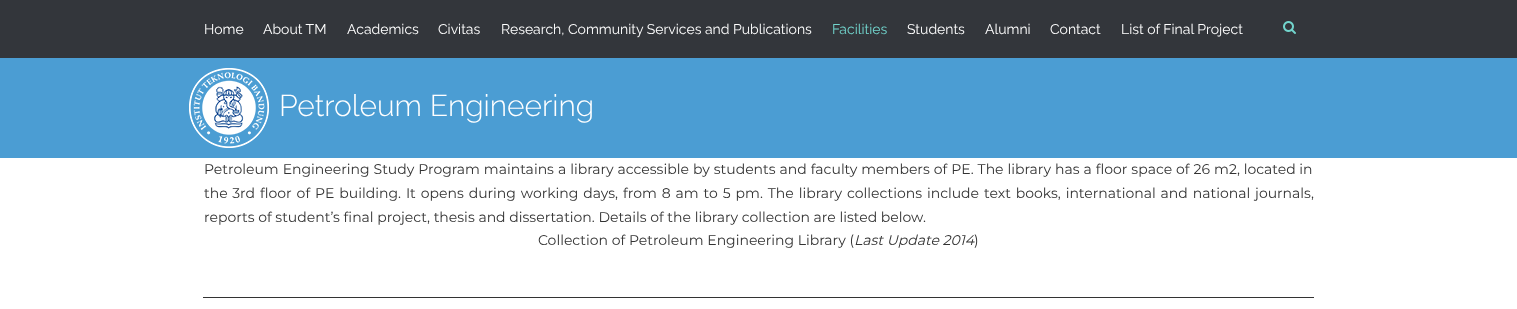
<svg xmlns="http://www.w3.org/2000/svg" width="1517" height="309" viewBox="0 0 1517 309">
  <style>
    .t1 { font: 14px Raleway; fill: #fff; }
    .t2 { font: 14px Raleway; fill: #72d5cd; }
    .t3 { font: 300 30px Raleway; fill: #fff; }
    .t4 { font: 14px Montserrat; fill: #333; }
    .t5 { font: italic 14px Montserrat; fill: #333; }
  </style>
  <rect width="100%" height="100%" fill="#fff"/>
  <rect x="0" y="0" width="1517" height="58" fill="#33363b"/>
  <text x="204" y="34" class="t1">Home</text>
  <text x="263" y="34" class="t1">About TM</text>
  <text x="347" y="34" class="t1">Academics</text>
  <text x="438" y="34" class="t1">Civitas</text>
  <text x="501" y="34" class="t1">Research, Community Services and Publications</text>
  <text x="832" y="34" class="t2">Facilities</text>
  <text x="907" y="34" class="t1">Students</text>
  <text x="985" y="34" class="t1">Alumni</text>
  <text x="1050" y="34" class="t1">Contact</text>
  <text x="1121" y="34" class="t1">List of Final Project</text>
  <image x="1283" y="21" width="13" height="13" href="images/1.png"/>
  <rect x="0" y="58" width="1517" height="100" fill="#4b9dd3"/>
  <image x="189" y="68" width="80" height="80" href="images/2.png"/>
  <text x="279" y="116" class="t3">Petroleum Engineering</text>
  <text x="204" y="174" word-spacing="0.3" class="t4">Petroleum Engineering Study Program maintains a library accessible by students and faculty members of PE. The library has a floor space of 26 m</text>
  <text x="1229" y="174" class="t4">2</text>
  <text x="1237" y="174" class="t4">, located in</text>
  <text x="204" y="198" word-spacing="1" class="t4">the 3</text>
  <text x="240" y="198" class="t4">rd</text>
  <text x="260" y="198" word-spacing="1.25" class="t4">floor of PE building. It opens during working days, from 8 am to 5 pm. The library collections include text books, international and national journals,</text>
  <text x="204" y="222" class="t4">reports of student’s final project, thesis and dissertation. Details of the library collection are listed below.</text>
  <text x="538" y="245" class="t4">Collection of Petroleum Engineering Library (</text>
  <text x="854" y="245" class="t5">Last Update 2014</text>
  <text x="974" y="245" class="t4">)</text>
  <rect x="203" y="297" width="1111" height="1" fill="#333"/>
</svg>
